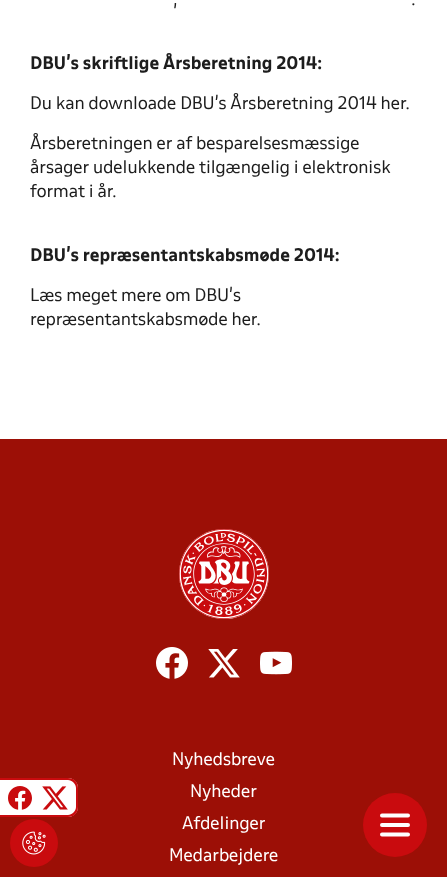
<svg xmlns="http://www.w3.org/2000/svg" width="447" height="877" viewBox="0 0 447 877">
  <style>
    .t1 { font: 16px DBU; fill: #1d1d1d; }
    .t2 { font: bold 16px DBU; fill: #1d1d1d; }
    .t3 { font: 16px DBU; fill: #fff; }
  </style>
  <rect width="100%" height="100%" fill="#fff"/>
  <text x="173" y="5" class="t1">,</text>
  <text x="411" y="5" class="t1">.</text>
  <text x="30" y="69" class="t2">DBU’s skriftlige Årsberetning 2014:</text>
  <text x="30" y="109" class="t1">Du kan downloade DBU’s Årsberetning 2014 her.</text>
  <text x="30" y="149" class="t1">Årsberetningen er af besparelsesmæssige</text>
  <text x="30" y="173" class="t1">årsager udelukkende tilgængelig i elektronisk</text>
  <text x="30" y="197" class="t1">format i år.</text>
  <text x="30" y="261" class="t2">DBU’s repræsentantskabsmøde 2014:</text>
  <text x="30" y="301" class="t1">Læs meget mere om DBU’s</text>
  <text x="30" y="325" class="t1">repræsentantskabsmøde her.</text>
  <rect x="0" y="439" width="447" height="438" fill="#9c0f06"/>
  <path d="M0 778H68C73.5 778 78 782.5 78 788V807C78 812.5 73.5 817 68 817H0Z" fill="#fff"/>
  <path d="M0 778H68C74 778 78 782 78 788V807C78 813 74 817 68 817H0ZM0 780H68C72 780 76 784 76 788V807C76 811 72 815 68 815H0Z" fill="#c90b0e" fill-rule="evenodd"/>
  <image x="8" y="786" width="24" height="24" href="images/1.png"/>
  <image x="42" y="786" width="26" height="24" href="images/2.png"/>
  <circle cx="34" cy="843" r="24" fill="#c90b0e"/>
  <image x="22" y="831" width="24" height="24" href="images/3.png"/>
  <image x="179" y="529" width="90" height="90" href="images/4.png"/>
  <image x="156" y="647" width="32" height="32" href="images/5.png"/>
  <image x="208" y="649" width="32" height="29" href="images/6.png"/>
  <image x="260" y="651" width="32" height="24" href="images/7.png"/>
  <text x="172" y="765" class="t3">Nyhedsbreve</text>
  <text x="190" y="797" class="t3">Nyheder</text>
  <text x="182" y="829" class="t3">Afdelinger</text>
  <text x="169" y="861" class="t3">Medarbejdere</text>
  <circle cx="395" cy="825" r="32" fill="#c90b0e"/>
  <path d="M408 834.5H382M408 825H382M408 815.5H382" fill="none" stroke="#fff" stroke-width="4" stroke-linecap="round"/>
</svg>
